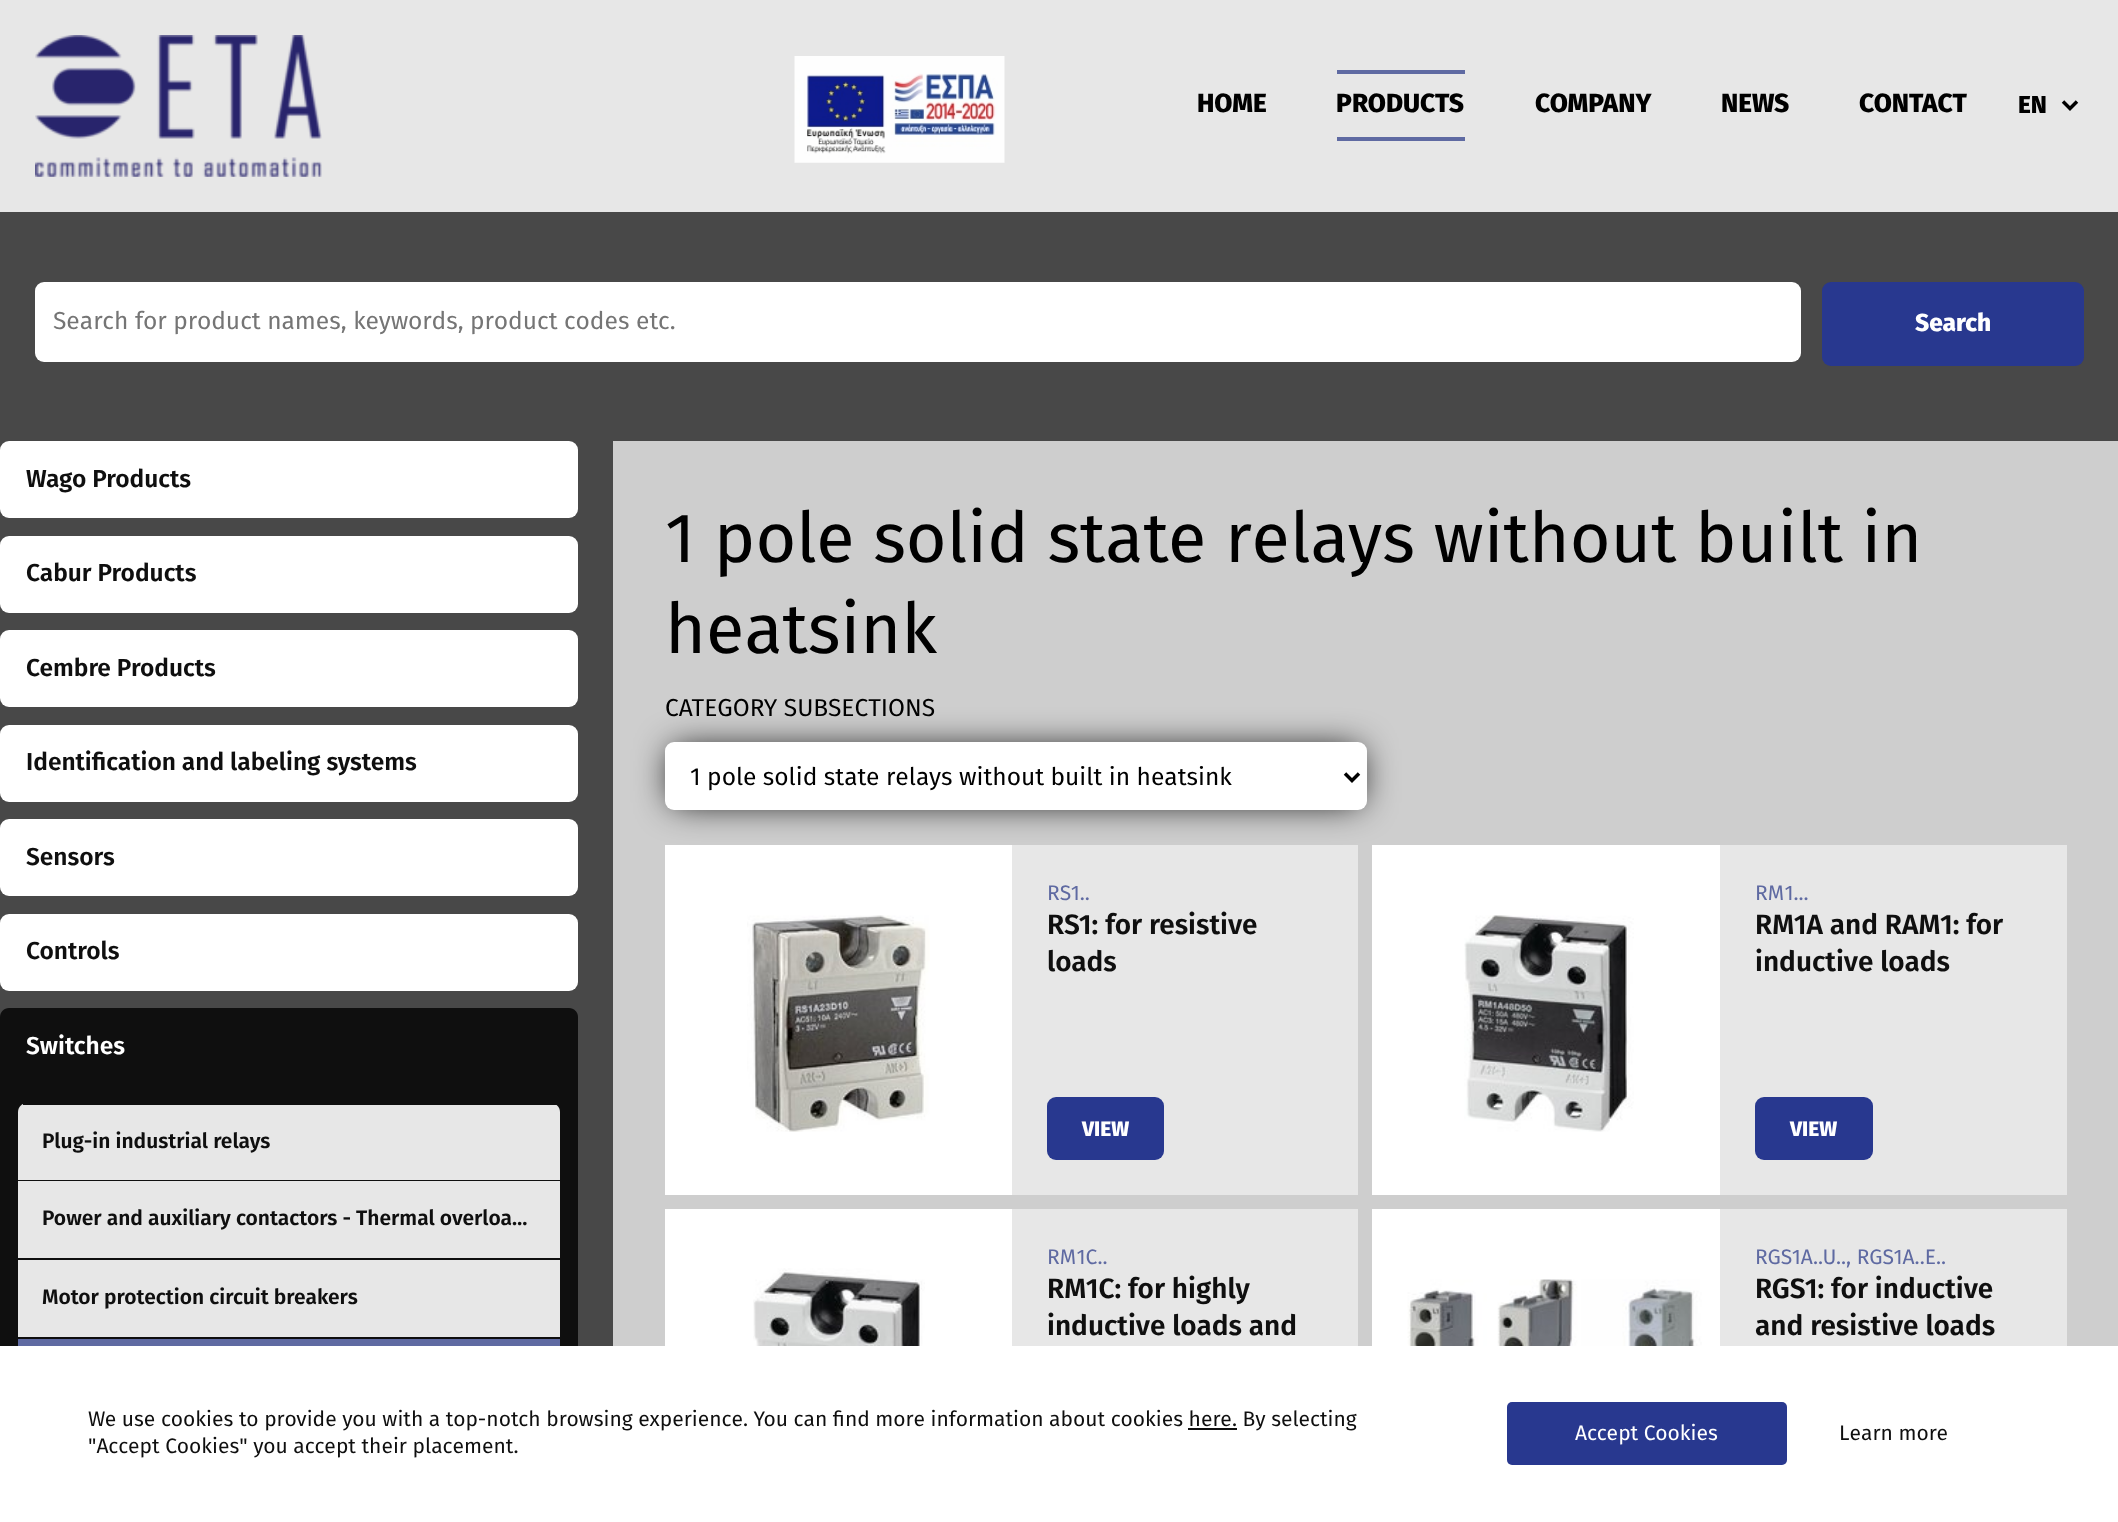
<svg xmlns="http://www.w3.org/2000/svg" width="2118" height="1522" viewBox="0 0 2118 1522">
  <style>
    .t1 { font: 800 26.25px Fira Sans; fill: #000; }
    .t2 { font: 800 24.5px Fira Sans; fill: #000; }
    .t3 { font: 24.5px Fira Sans; fill: #757575; }
    .t4 { font: 800 24.5px Fira Sans; fill: #fff; }
    .t5 { font: 600 24.5px Fira Sans; fill: #0f0f0f; }
    .t6 { font: 600 24.5px Fira Sans; fill: #fff; }
    .t7 { font: 600 21px Fira Sans; fill: #0f0f0f; }
    .t8 { font: 70px Fira Sans; fill: #000; }
    .t9 { font: 24.5px Fira Sans; fill: #000; }
    .t10 { font: 21px Fira Sans; fill: #5f6aa2; }
    .t11 { font: 600 28px Fira Sans; fill: #0f0f0f; }
    .t12 { font: 800 21px Fira Sans; fill: #fff; }
    .t13 { font: 21px Fira Sans; fill: #0f0f0f; }
    .t14 { font: 21px Fira Sans; fill: #fff; }
  </style>
  <rect width="100%" height="100%" fill="#484848"/>
  <rect x="0" y="0" width="2118" height="212" fill="#e7e7e7"/>
  <image x="35" y="35" width="287" height="142" href="images/1.png"/>
  <image x="794" y="56" width="211" height="107" href="images/2.png"/>
  <text x="1197" y="112" class="t1">HOME</text>
  <rect x="1337" y="70" width="128" height="4" fill="#5f6aa2"/>
  <rect x="1337" y="137" width="128" height="4" fill="#5f6aa2"/>
  <text x="1336" y="112" class="t1">PRODUCTS</text>
  <text x="1535" y="112" class="t1">COMPANY</text>
  <text x="1721" y="112" class="t1">NEWS</text>
  <text x="1859" y="112" class="t1">CONTACT</text>
  <path d="M2063 101.5L2070 108.5L2077 101.5" fill="none" stroke="#000" stroke-width="3.5"/>
  <text x="2018" y="113" class="t2">EN</text>
  <rect x="35" y="282" width="1766" height="80" rx="9" fill="#fff"/>
  <text x="53" y="329" class="t3">Search for product names, keywords, product codes etc.</text>
  <rect x="1822" y="282" width="262" height="84" rx="9" fill="#28388f"/>
  <text x="1915" y="331" class="t4">Search</text>
  <rect x="0" y="441" width="578" height="77" rx="9" fill="#fff"/>
  <text x="26" y="487" class="t5">Wago Products</text>
  <rect x="0" y="536" width="578" height="77" rx="9" fill="#fff"/>
  <text x="26" y="581" class="t5">Cabur Products</text>
  <rect x="0" y="630" width="578" height="77" rx="9" fill="#fff"/>
  <text x="26" y="676" class="t5">Cembre Products</text>
  <rect x="0" y="725" width="578" height="77" rx="9" fill="#fff"/>
  <text x="26" y="770" class="t5">Identification and labeling systems</text>
  <rect x="0" y="819" width="578" height="77" rx="9" fill="#fff"/>
  <text x="26" y="865" class="t5">Sensors</text>
  <rect x="0" y="914" width="578" height="77" rx="9" fill="#fff"/>
  <text x="26" y="959" class="t5">Controls</text>
  <path d="M9 1008H569C574 1008 578 1012 578 1017V1085H0V1017C0 1012 4 1008 9 1008Z" fill="#0f0f0f"/>
  <text x="26" y="1054" class="t6">Switches</text>
  <rect x="0" y="1085" width="578" height="261" fill="#0f0f0f"/>
  <path d="M27 1103H551C556 1103 560 1107 560 1112V1181H18V1112C18 1107 22 1103 27 1103Z" fill="#e7e7e7"/>
  <rect x="23" y="1103" width="534" height="2" fill="#0f0f0f"/>
  <rect x="18" y="1180" width="542" height="1" fill="#0f0f0f"/>
  <text x="42" y="1148" class="t7">Plug-in industrial relays</text>
  <rect x="18" y="1181" width="542" height="77" fill="#e7e7e7"/>
  <text x="42" y="1225" class="t7">Power and auxiliary contactors - Thermal overloa…</text>
  <rect x="18" y="1260" width="542" height="77" fill="#e7e7e7"/>
  <text x="42" y="1304" class="t7">Motor protection circuit breakers</text>
  <rect x="18" y="1339" width="542" height="7" fill="#5f6aa2"/>
  <rect x="613" y="441" width="1505" height="905" fill="#cecece"/>
  <text x="665" y="562" class="t8">1 pole solid state relays without built in</text>
  <text x="665" y="653" class="t8">heatsink</text>
  <text x="665" y="716" class="t9">CATEGORY SUBSECTIONS</text>
  <rect x="672" y="749" width="688" height="54" rx="2" fill="#000" filter="blur(17.5px)"/>
  <rect x="665" y="742" width="702" height="68" rx="9" fill="#fff"/>
  <path d="M1345 773.5L1352 780.5L1359 773.5" fill="none" stroke="#000" stroke-width="3.5"/>
  <text x="690" y="785" class="t9">1 pole solid state relays without built in heatsink</text>
  <rect x="1012" y="845" width="346" height="350" fill="#e7e7e7"/>
  <rect x="665" y="845" width="347" height="350" fill="#fff"/>
  <image x="747" y="915" width="183" height="217" href="images/3.png"/>
  <text x="1047" y="900" class="t10">RS1..</text>
  <text x="1047" y="934" class="t11">RS1: for resistive</text>
  <text x="1047" y="971" class="t11">loads</text>
  <rect x="1047" y="1097" width="117" height="63" rx="9" fill="#28388f"/>
  <text x="1082" y="1136" class="t12">VIEW</text>
  <rect x="1720" y="845" width="347" height="350" fill="#e7e7e7"/>
  <rect x="1372" y="845" width="348" height="350" fill="#fff"/>
  <image x="1464" y="915" width="170" height="217" href="images/4.png"/>
  <text x="1755" y="900" class="t10">RM1...</text>
  <text x="1755" y="934" class="t11">RM1A and RAM1: for</text>
  <text x="1755" y="971" class="t11">inductive loads</text>
  <rect x="1755" y="1097" width="118" height="63" rx="9" fill="#28388f"/>
  <text x="1790" y="1136" class="t12">VIEW</text>
  <rect x="1012" y="1209" width="346" height="137" fill="#e7e7e7"/>
  <rect x="665" y="1209" width="347" height="137" fill="#fff"/>
  <image x="753" y="1268" width="172" height="78" href="images/5.png"/>
  <text x="1047" y="1264" class="t10">RM1C..</text>
  <text x="1047" y="1298" class="t11">RM1C: for highly</text>
  <text x="1047" y="1335" class="t11">inductive loads and</text>
  <rect x="1720" y="1209" width="347" height="137" fill="#e7e7e7"/>
  <rect x="1372" y="1209" width="348" height="137" fill="#fff"/>
  <image x="1393" y="1279" width="309" height="67" href="images/6.png"/>
  <text x="1755" y="1264" class="t10">RGS1A..U.., RGS1A..Ε..</text>
  <text x="1755" y="1298" class="t11">RGS1: for inductive</text>
  <text x="1755" y="1335" class="t11">and resistive loads</text>
  <rect x="0" y="1346" width="2118" height="176" fill="#fff"/>
  <text x="88" y="1426" class="t13">We use cookies to provide you with a top-notch browsing experience. You can find more information about cookies here. By selecting</text>
  <rect x="1188" y="1428" width="49" height="2" fill="#0f0f0f"/>
  <text x="88" y="1453" class="t13">"Accept Cookies" you accept their placement.</text>
  <rect x="1507" y="1402" width="280" height="63" rx="5" fill="#28388f"/>
  <text x="1575" y="1440" class="t14">Accept Cookies</text>
  <text x="1839" y="1440" class="t13">Learn more</text>
</svg>
